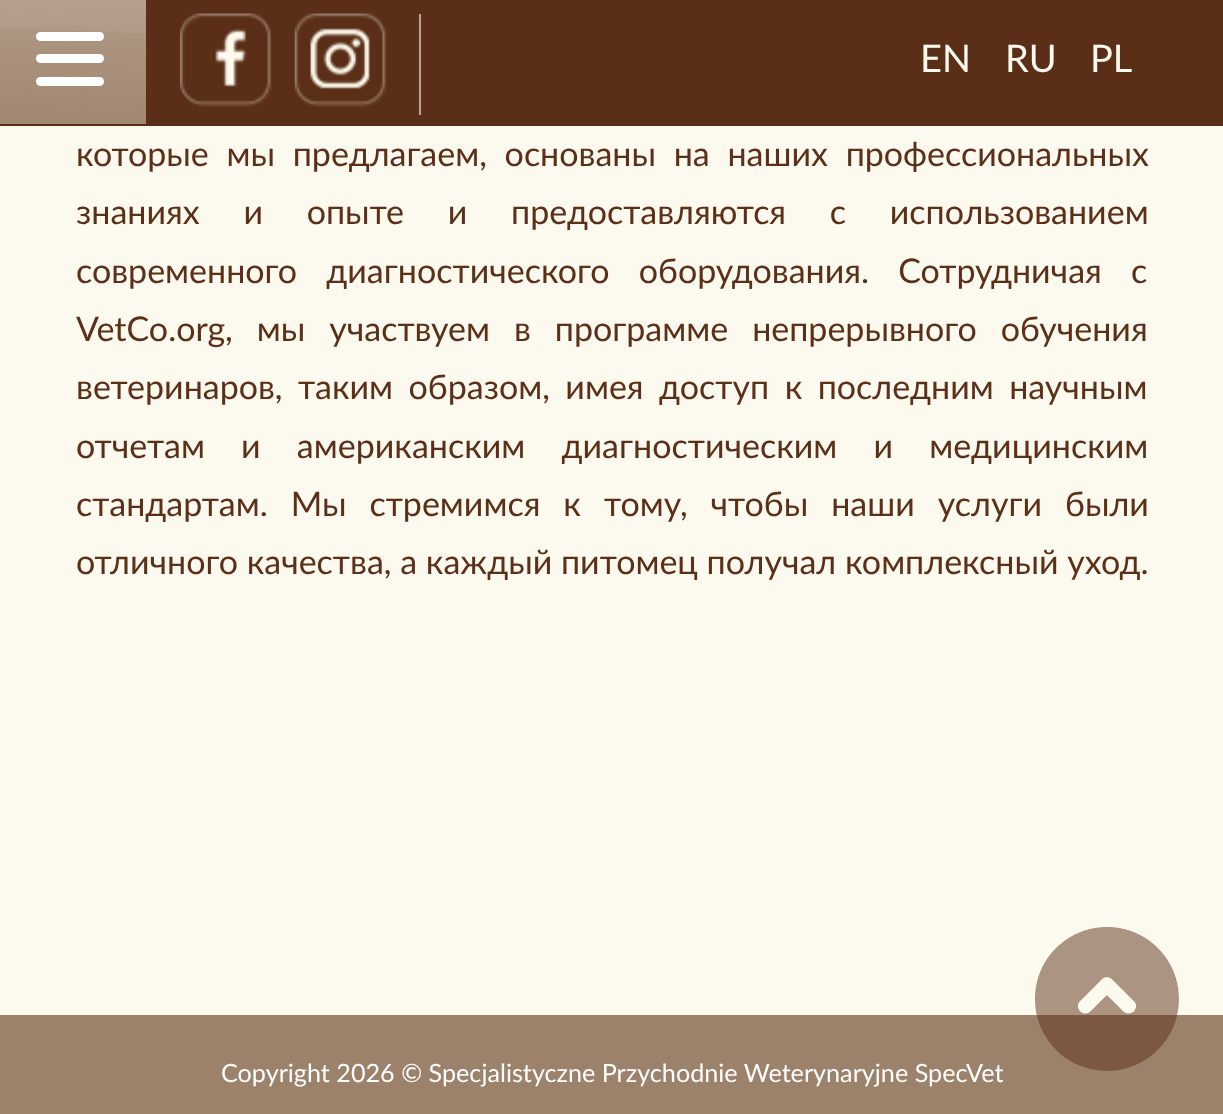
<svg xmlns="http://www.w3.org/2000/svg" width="1223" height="1114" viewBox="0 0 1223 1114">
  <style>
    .t1 { font: 38px Lato; fill: #fcfaee; }
    .t2 { font: 34px Lato; fill: #5c2f18; }
    .t3 { font: 25.2px Lato; fill: #fff; }
  </style>
  <rect width="100%" height="100%" fill="#fcfaee"/>
  <rect x="0" y="0" width="1223" height="126" fill="#5b2f17"/>
  <image x="0" y="0" width="146" height="124" href="images/1.png"/>
  <rect x="36" y="32" width="68" height="9" rx="4.5" fill="#fff"/>
  <rect x="36" y="54" width="68" height="9" rx="4.5" fill="#fff"/>
  <rect x="36" y="77" width="68" height="9" rx="4.5" fill="#fff"/>
  <rect x="419" y="14" width="2" height="101" fill="#b9a592"/>
  <image x="180" y="13" width="92" height="94" href="images/2.png"/>
  <image x="294" y="13" width="93" height="94" href="images/3.png"/>
  <text x="920" y="72" class="t1">EN</text>
  <text x="1005" y="72" class="t1">RU</text>
  <text x="1090" y="72" class="t1">PL</text>
  <text x="76" y="166" word-spacing="9" class="t2">которые мы предлагаем, основаны на наших профессиональных</text>
  <text x="76" y="224" word-spacing="35" class="t2">знаниях и опыте и предоставляются с использованием</text>
  <text x="76" y="283" word-spacing="20.5" class="t2">современного диагностического оборудования. Сотрудничая с</text>
  <text x="76" y="341" word-spacing="15.25" class="t2">VetCo.org, мы участвуем в программе непрерывного обучения</text>
  <text x="76" y="399" word-spacing="6.75" class="t2">ветеринаров, таким образом, имея доступ к последним научным</text>
  <text x="76" y="458" word-spacing="27.5" class="t2">отчетам и американским диагностическим и медицинским</text>
  <text x="76" y="516" word-spacing="14.25" class="t2">стандартам. Мы стремимся к тому, чтобы наши услуги были</text>
  <text x="76" y="574" class="t2">отличного качества, а каждый питомец получал комплексный уход.</text>
  <rect x="0" y="1015" width="1223" height="99" fill="#9c826a"/>
  <text x="221" y="1082" class="t3">Copyright 2026 © Specjalistyczne Przychodnie Weterynaryjne SpecVet</text>
  <image x="1035" y="927" width="144" height="144" href="images/4.png"/>
</svg>
